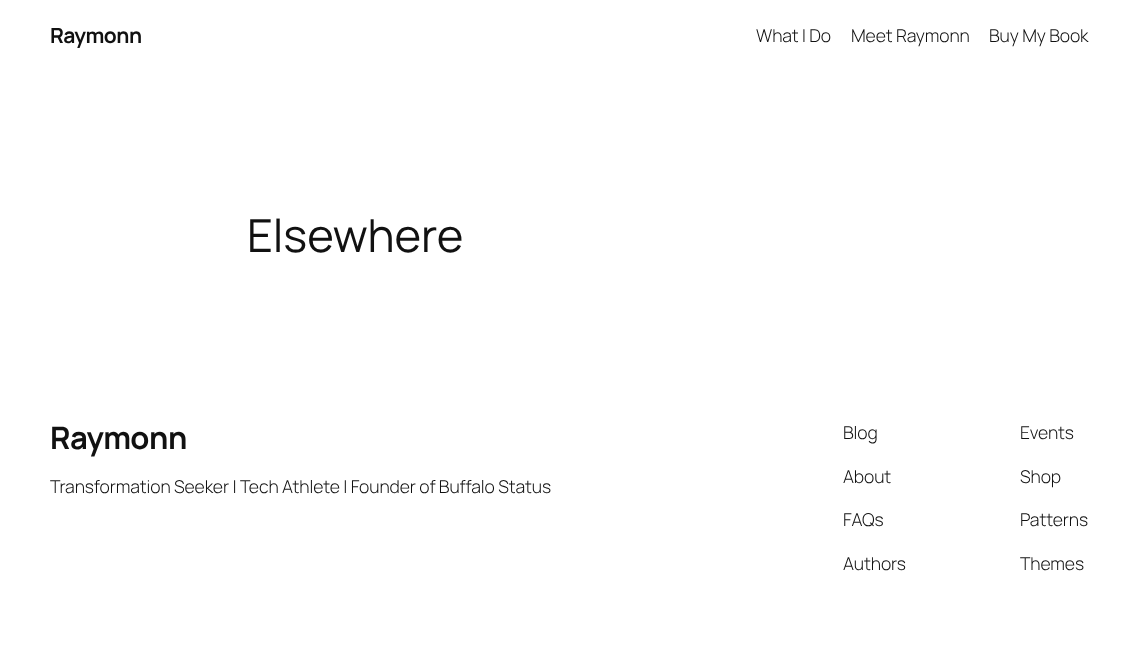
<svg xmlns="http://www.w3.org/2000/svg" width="1138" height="661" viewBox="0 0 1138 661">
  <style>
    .t1 { font: bold 21px Manrope; letter-spacing: -0.5px; fill: #111; }
    .t2 { font: 300 17.6px Manrope; letter-spacing: -0.1px; fill: #111; }
    .t3 { font: 45.5px Manrope; letter-spacing: -0.1px; fill: #111; }
    .t4 { font: bold 31px Manrope; letter-spacing: -0.5px; fill: #111; }
  </style>
  <rect width="100%" height="100%" fill="#fff"/>
  <text x="50" y="43" class="t1">Raymonn</text>
  <text x="756" y="42" class="t2">What I Do</text>
  <text x="851" y="42" class="t2">Meet Raymonn</text>
  <text x="989" y="42" class="t2">Buy My Book</text>
  <text x="247" y="252" class="t3">Elsewhere</text>
  <text x="50" y="449" class="t4">Raymonn</text>
  <text x="50" y="493" class="t2">Transformation Seeker | Tech Athlete | Founder of Buffalo Status</text>
  <text x="843" y="439" class="t2">Blog</text>
  <text x="843" y="483" class="t2">About</text>
  <text x="843" y="526" class="t2">FAQs</text>
  <text x="843" y="570" class="t2">Authors</text>
  <text x="1020" y="439" class="t2">Events</text>
  <text x="1020" y="483" class="t2">Shop</text>
  <text x="1020" y="526" class="t2">Patterns</text>
  <text x="1020" y="570" class="t2">Themes</text>
</svg>
